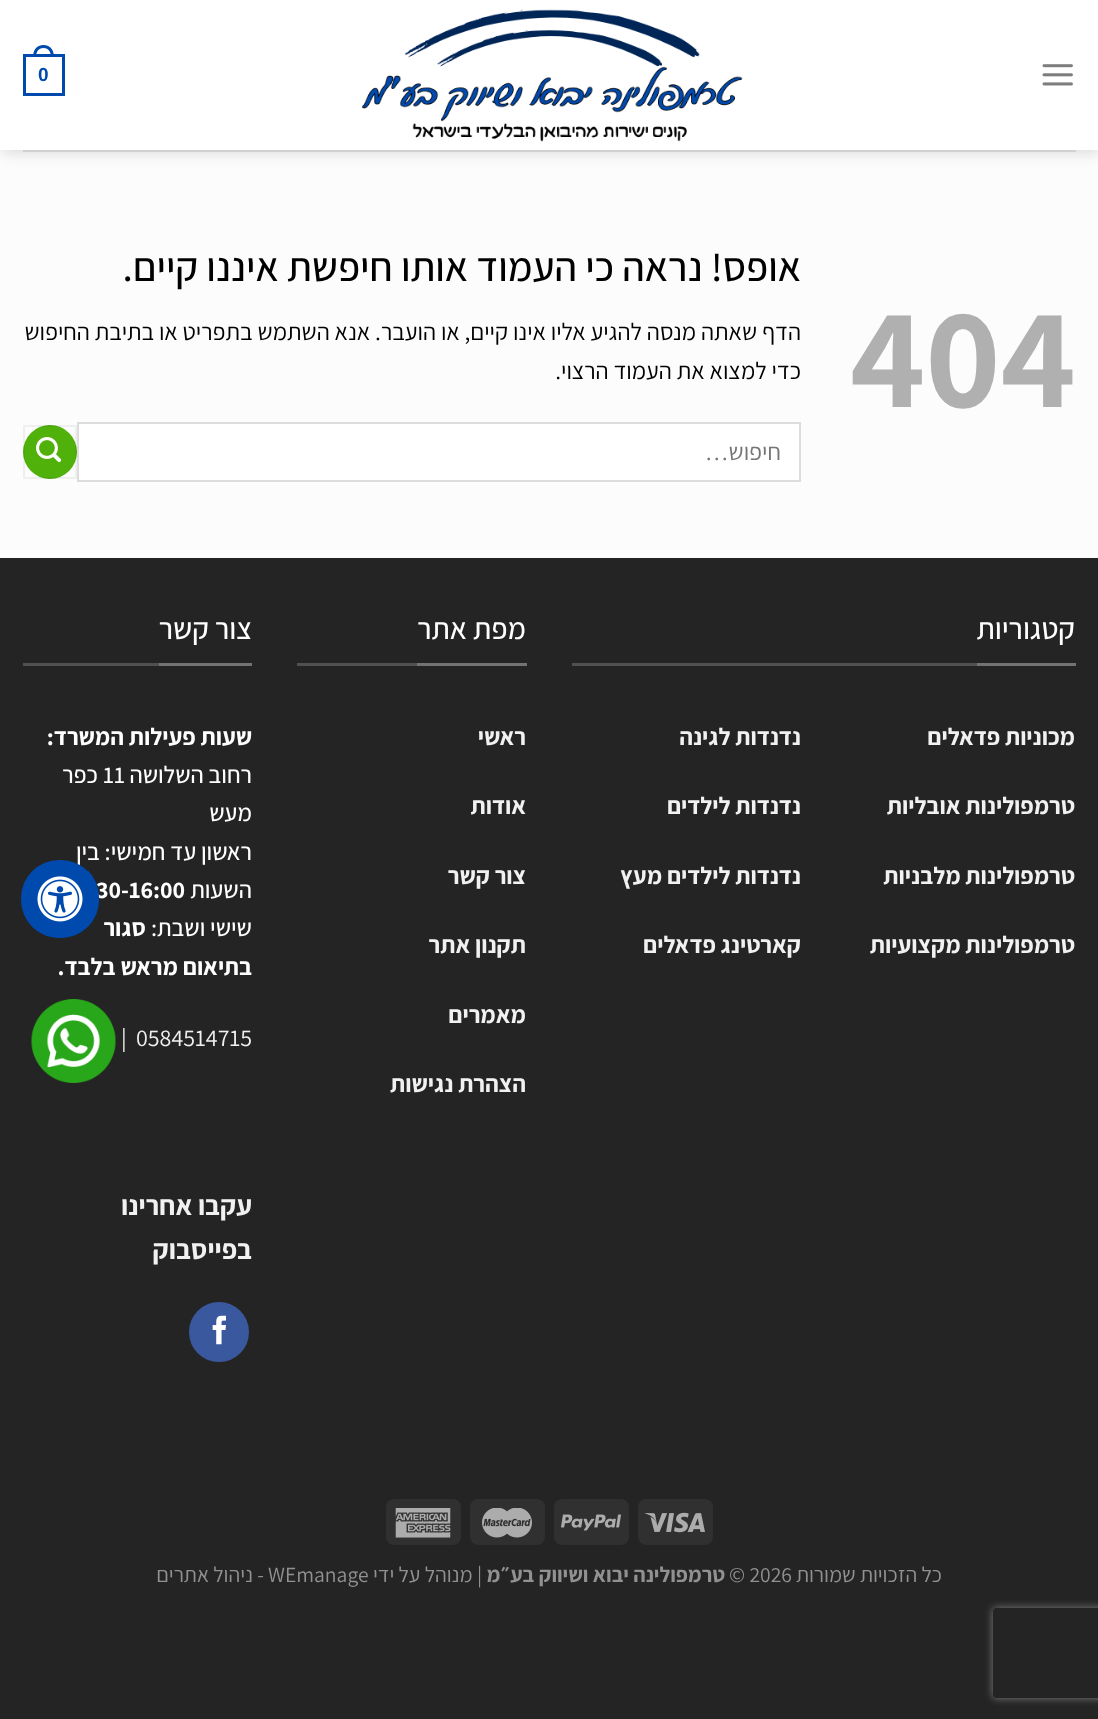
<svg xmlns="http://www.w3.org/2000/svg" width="1098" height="1719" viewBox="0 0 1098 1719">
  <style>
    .t1 { font: bold 19px Liberation Sans; fill: #004aad; }
    .t2 { font: bold 144px Assistant; fill: #b0b0b0; }
    .t3 { font: 500 40.75px Assistant; direction: rtl; fill: #000; }
    .t4 { font: 24px Assistant; direction: rtl; fill: #000; }
    .t5 { font: 24px Assistant; direction: rtl; fill: #757575; }
    .t6 { font: 500 30px Assistant; direction: rtl; fill: #fff; }
    .t7 { font: bold 24px Assistant; direction: rtl; fill: #f1f1f1; }
    .t8 { font: bold 24px Assistant; direction: rtl; fill: #fff; }
    .t9 { font: 500 24px Assistant; direction: rtl; fill: #fff; }
    .t10 { font: 500 24px Assistant; fill: #fff; }
    .t11 { font: bold 24px Assistant; fill: #fff; }
    .t12 { font: 24px Assistant; fill: #f1f1f1; }
    .t13 { font: bold 27.5px Assistant; direction: rtl; fill: #f1f1f1; }
    .t14 { font: 21.6px Assistant; direction: rtl; fill: #919191; }
    .t15 { font: 21.6px Assistant; fill: #919191; }
    .t16 { font: bold 21.6px Assistant; direction: rtl; fill: #919191; }
  </style>
  <defs>
    <clipPath id="clip1"><path d="M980 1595H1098V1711H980ZM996 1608H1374C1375.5 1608 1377 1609.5 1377 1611V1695C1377 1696.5 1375.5 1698 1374 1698H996C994.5 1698 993 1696.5 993 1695V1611C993 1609.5 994.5 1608 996 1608Z" clip-rule="evenodd"/></clipPath>
  </defs>
  <rect width="100%" height="100%" fill="#242424"/>
  <rect x="0" y="150" width="1098" height="408" fill="#fcfcfc"/>
  <rect x="2" y="2" width="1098" height="150" fill="#00000026" filter="blur(7.5px)"/>
  <rect x="0" y="0" width="1098" height="150" fill="#fff"/>
  <image x="1042" y="64" width="31" height="22" href="images/1.png"/>
  <image x="362" y="9" width="381" height="133" href="images/2.png"/>
  <rect x="24.5" y="55.5" width="39" height="39" fill="none" stroke="#004aad" stroke-width="3"/>
  <path d="M43.5 45C50.5 45 54 50.5 54 57H33C33 50.5 36.5 45 43.5 45ZM43.5 48C49 48 51 52.5 51 57H36C36 52.5 38 48 43.5 48Z" fill="#004aad" fill-rule="evenodd"/>
  <text x="38" y="81" class="t1">0</text>
  <rect x="23" y="150" width="1053" height="2" fill="#d0d0d0"/>
  <text x="850" y="407" class="t2">404</text>
  <text x="801" y="281" class="t3">אופס! נראה כי העמוד אותו חיפשת איננו קיים.</text>
  <text x="801" y="340" class="t4">הדף שאתה מנסה להגיע אליו אינו קיים, או הועבר. אנא השתמש בתפריט או בתיבת החיפוש</text>
  <text x="801" y="379" class="t4">כדי למצוא את העמוד הרצוי.</text>
  <rect x="78" y="423" width="722" height="58" fill="#fff" stroke="#ddd" stroke-width="2"/>
  <text x="781" y="460" class="t5">חיפוש…</text>
  <circle cx="50" cy="452" r="27" fill="#50b10b"/>
  <rect x="24" y="426" width="52" height="52" fill="none" stroke="#0000000d" stroke-width="2"/>
  <image x="36" y="437" width="25" height="25" href="images/3.png"/>
  <rect x="572" y="663" width="405" height="3" fill="#505050"/>
  <rect x="977" y="663" width="99" height="3" fill="#737373"/>
  <text x="1075" y="639" class="t6">קטגוריות</text>
  <text x="1075" y="745" class="t7">מכוניות פדאלים</text>
  <text x="1075" y="814" class="t7">טרמפולינות אובליות</text>
  <text x="1075" y="884" class="t7">טרמפולינות מלבניות</text>
  <text x="1075" y="953" class="t7">טרמפולינות מקצועיות</text>
  <text x="801" y="745" class="t7">נדנדות לגינה</text>
  <text x="801" y="814" class="t7">נדנדות לילדים</text>
  <text x="801" y="884" class="t7">נדנדות לילדים מעץ</text>
  <text x="801" y="953" class="t7">קארטינג פדאלים</text>
  <rect x="297" y="663" width="120" height="3" fill="#505050"/>
  <rect x="417" y="663" width="110" height="3" fill="#737373"/>
  <text x="526" y="639" class="t6">מפת אתר</text>
  <text x="526" y="745" class="t7">ראשי</text>
  <text x="526" y="814" class="t7">אודות</text>
  <text x="526" y="884" class="t7">צור קשר</text>
  <text x="526" y="953" class="t7">תקנון אתר</text>
  <text x="526" y="1023" class="t7">מאמרים</text>
  <text x="526" y="1092" class="t7">הצהרת נגישות</text>
  <rect x="23" y="663" width="136" height="3" fill="#505050"/>
  <rect x="159" y="663" width="93" height="3" fill="#737373"/>
  <text x="252" y="639" class="t6">צור קשר</text>
  <text x="252" y="745" class="t8">שעות פעילות המשרד:</text>
  <text x="252" y="783" class="t9">רחוב השלושה</text>
  <text x="103" y="783" class="t10">11</text>
  <text x="98" y="783" class="t9">כפר</text>
  <text x="252" y="821" class="t9">מעש</text>
  <text x="252" y="860" class="t9">ראשון עד חמישי: בין</text>
  <text x="252" y="898" class="t9">השעות</text>
  <text x="96" y="898" class="t11">30-16:00</text>
  <text x="252" y="936" class="t9">שישי ושבת:</text>
  <text x="146" y="936" class="t8">סגור</text>
  <text x="252" y="975" class="t8">בתיאום מראש בלבד.</text>
  <text x="136" y="1046" class="t12">0584514715</text>
  <text x="121" y="1046" class="t12">|</text>
  <image x="31" y="999" width="85" height="84" href="images/4.png"/>
  <text x="252" y="1215" class="t13">עקבו אחרינו</text>
  <text x="252" y="1259" class="t13">בפייסבוק</text>
  <circle cx="219" cy="1332" r="29" fill="#3a589d" stroke="#3a589d" stroke-width="2"/>
  <image x="212" y="1315" width="14" height="30" href="images/5.png"/>
  <rect x="638" y="1499" width="75" height="46" rx="8" fill="#303030"/>
  <image x="645" y="1512" width="60" height="21" href="images/6.png"/>
  <rect x="554" y="1499" width="75" height="46" rx="8" fill="#303030"/>
  <image x="561" y="1514" width="60" height="17" href="images/7.png"/>
  <rect x="470" y="1499" width="75" height="46" rx="8" fill="#303030"/>
  <image x="482" y="1508" width="50" height="30" href="images/8.png"/>
  <rect x="386" y="1499" width="75" height="46" rx="8" fill="#303030"/>
  <image x="395" y="1508" width="56" height="30" href="images/9.png"/>
  <text x="942" y="1582" class="t14">כל הזכויות שמורות</text>
  <text x="729" y="1582" class="t15">© 2026</text>
  <text x="725" y="1582" class="t16">טרמפולינה יבוא ושיווק בע״מ</text>
  <text x="482" y="1582" class="t14">| מנוהל על ידי</text>
  <text x="268" y="1582" class="t15">WEmanage</text>
  <text x="264" y="1582" class="t14">- ניהול אתרים</text>
  <rect x="21" y="860" width="78" height="78" rx="38" fill="#004aad"/>
  <path d="M87.5 871C95 878.5 98 888 98 898.5C98 921.5 81.5 937.5 58.5 937C48.5 936.5 39.5 933 32.5 926" fill="none" stroke="#004aad" stroke-width="1.5"/>
  <image x="37" y="876" width="46" height="46" href="images/10.png"/>
  <g clip-path="url(#clip1)">
    <rect x="993" y="1608" width="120" height="90" rx="3" fill="#808080" filter="blur(4px)"/>
  </g>
</svg>
